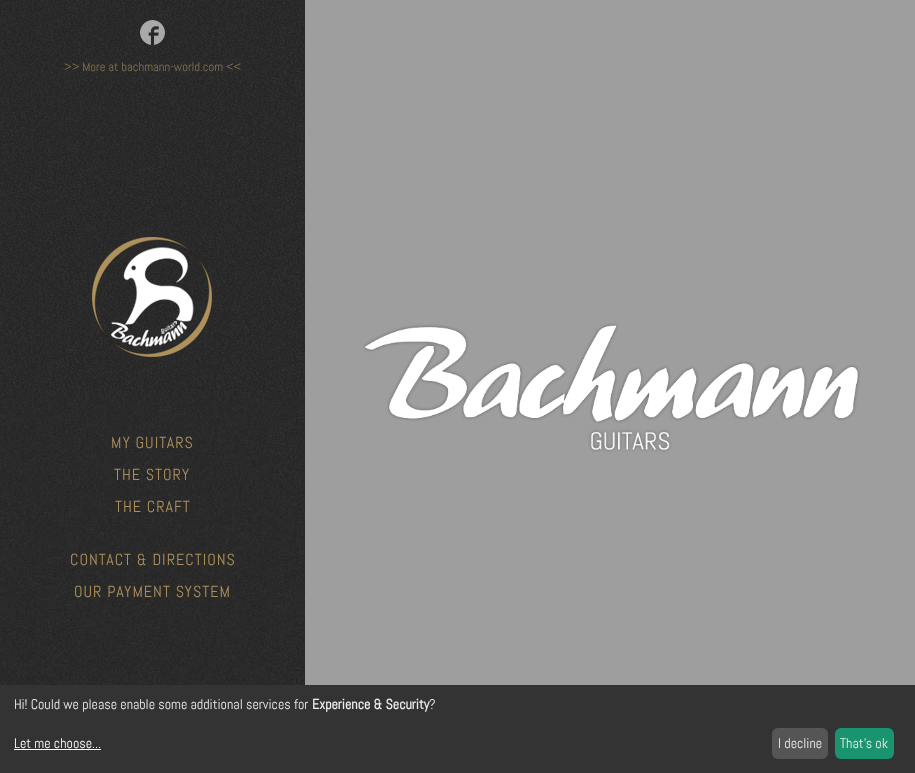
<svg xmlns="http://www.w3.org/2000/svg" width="915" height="773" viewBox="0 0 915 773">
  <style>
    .t1 { font: 12.6px Abel; fill: #86724e; }
    .t2 { font: 16px Abel; letter-spacing: 1px; fill: #ad915d; }
    .t3 { font: 14px Abel; fill: #eee; }
    .t4 { font: bold 14px Abel; fill: #eee; }
    .t5 { font: 14px Abel; fill: #fff; }
  </style>
  <rect width="100%" height="100%" fill="#fff"/>
  <image x="0" y="0" width="305" height="685" href="images/1.png"/>
  <image x="140" y="20" width="25" height="25" href="images/2.png"/>
  <text x="64" y="71" class="t1">&gt;&gt; More at bachmann-world.com &lt;&lt;</text>
  <image x="92" y="237" width="120" height="120" href="images/3.png"/>
  <text x="111" y="448" class="t2">MY GUITARS</text>
  <text x="114" y="480" class="t2">THE STORY</text>
  <text x="115" y="512" class="t2">THE CRAFT</text>
  <text x="70" y="565" class="t2">CONTACT &amp; DIRECTIONS</text>
  <text x="74" y="597" class="t2">OUR PAYMENT SYSTEM</text>
  <rect x="305" y="0" width="610" height="685" fill="#9e9e9e"/>
  <image x="363" y="323" width="497" height="129" href="images/4.png"/>
  <rect x="0" y="685" width="915" height="88" fill="#333"/>
  <text x="14" y="709" class="t3">Hi! Could we please enable some additional services for</text>
  <text x="312" y="709" class="t4">Experience &amp; Security</text>
  <text x="429" y="709" class="t3">?</text>
  <text x="14" y="748" class="t5">Let me choose...</text>
  <rect x="14" y="749" width="87" height="1" fill="#fff"/>
  <rect x="772" y="728" width="56" height="31" rx="6" fill="#555"/>
  <text x="778" y="748" class="t3">I decline</text>
  <rect x="835" y="728" width="59" height="31" rx="6" fill="#1a936f"/>
  <text x="840" y="748" class="t3">That's ok</text>
</svg>
